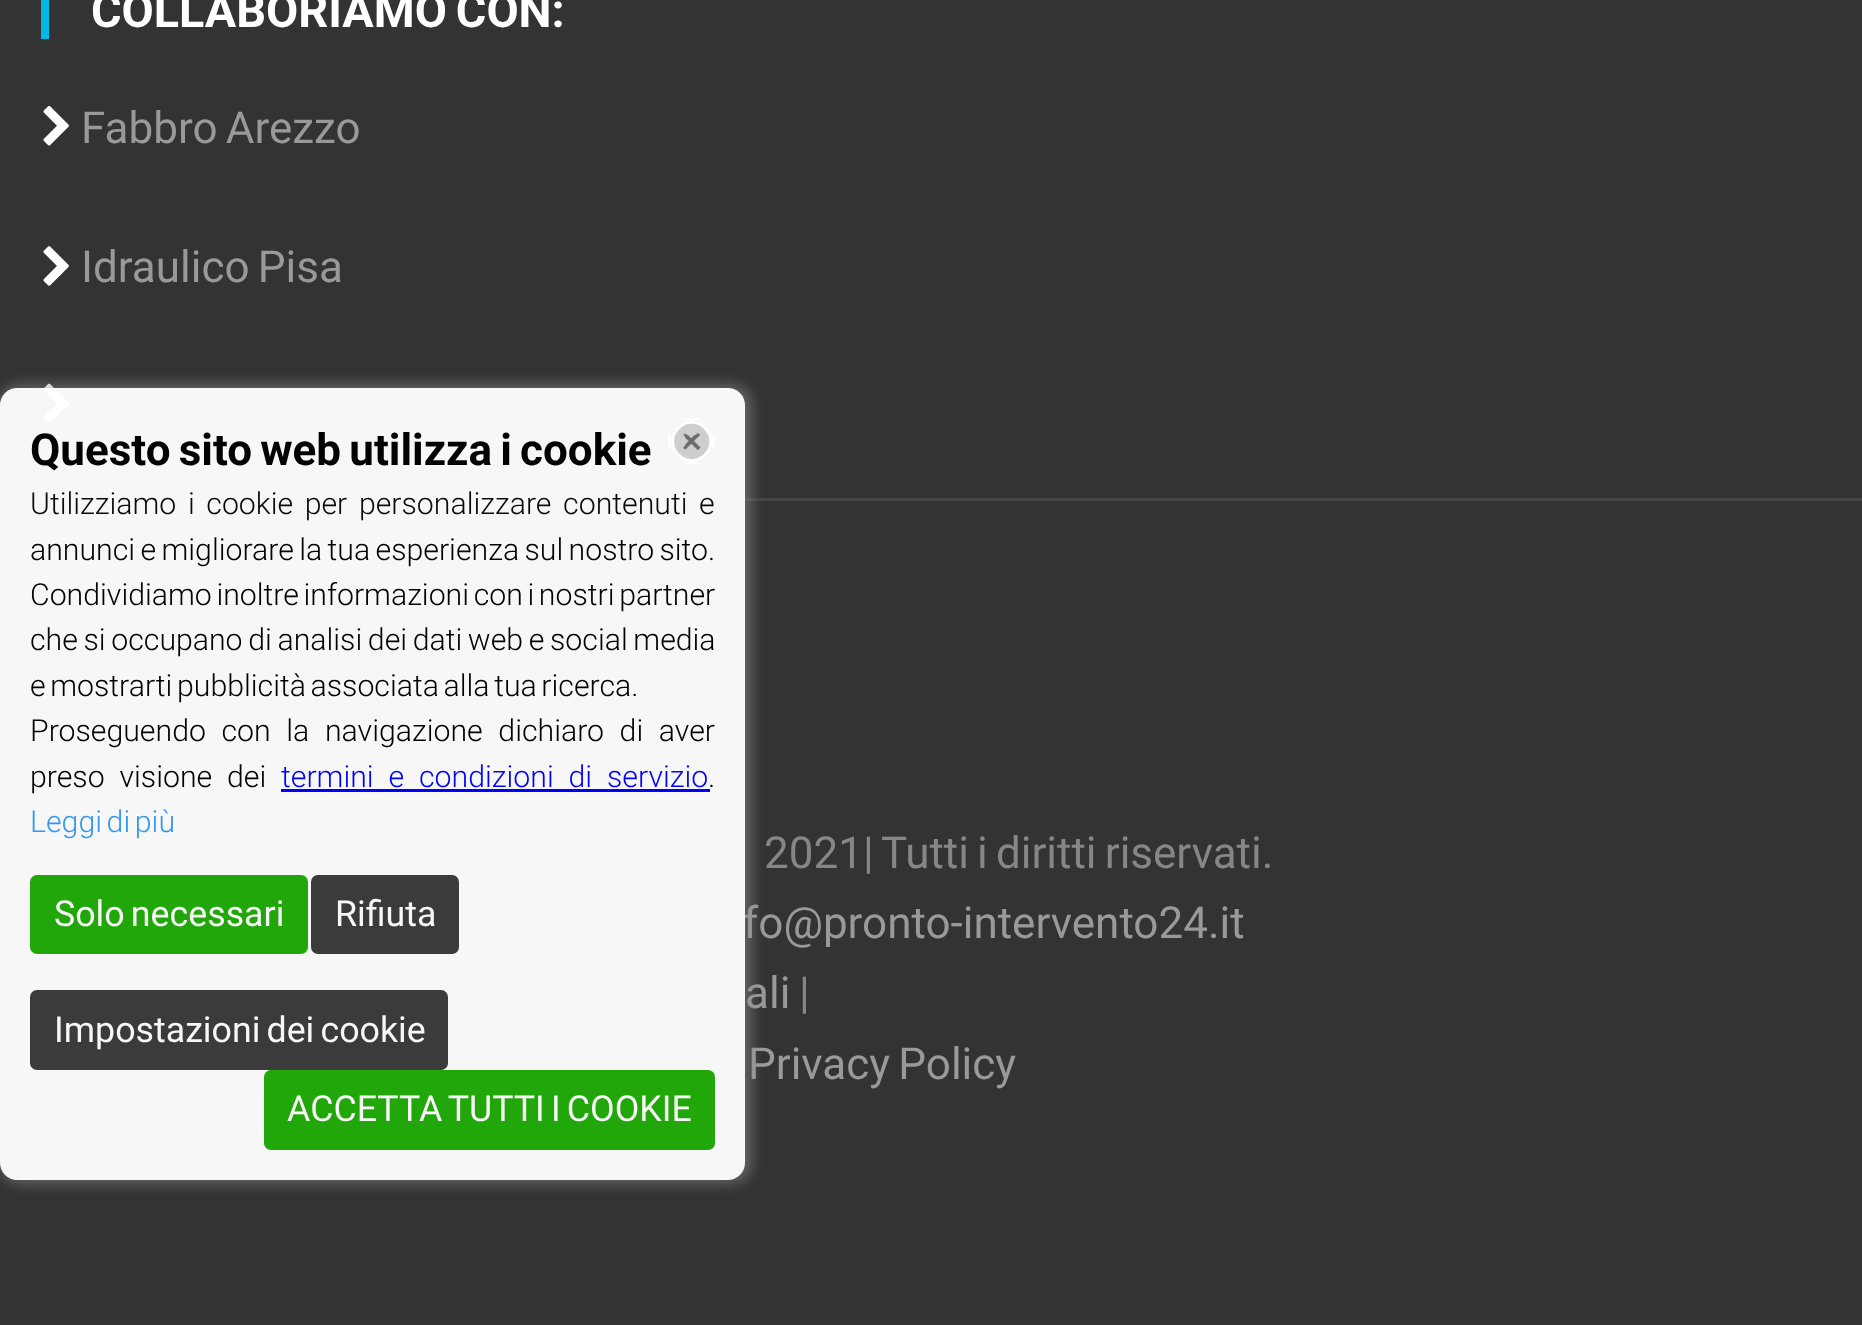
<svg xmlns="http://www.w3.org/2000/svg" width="1862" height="1325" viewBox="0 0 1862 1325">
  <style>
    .t1 { font: bold 46.75px Roboto; fill: #fff; }
    .t2 { font: 44px Roboto; fill: #999; }
    .t3 { font: 44px Roboto; fill: #868686; }
    .t4 { font: bold 44px Roboto; fill: #020202; }
    .t5 { font: 300 30.25px Roboto; fill: #0a0a0a; }
    .t6 { font: 300 30.25px Roboto; fill: #020202; }
    .t7 { font: 300 30.25px Roboto; fill: #0202f7; }
    .t8 { font: 300 30.25px Roboto; fill: #3597ed; }
    .t9 { font: 35.75px Roboto; fill: #f7f7f7; }
  </style>
  <defs>
    <clipPath id="clip1"><path d="M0 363H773V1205H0ZM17 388H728C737.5 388 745 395.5 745 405V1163C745 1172.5 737.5 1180 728 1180H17C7.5 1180 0 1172.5 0 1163V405C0 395.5 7.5 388 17 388Z" clip-rule="evenodd"/></clipPath>
  </defs>
  <rect width="100%" height="100%" fill="#333"/>
  <rect x="41" y="0" width="8" height="39" fill="#01b9e6"/>
  <text x="91" y="27" word-spacing="-2.75" class="t1">COLLABORIAMO CON:</text>
  <image x="43" y="106" width="26" height="40" href="images/1.png"/>
  <text x="81" y="143" word-spacing="-2.75" class="t2">Fabbro Arezzo</text>
  <image x="43" y="246" width="26" height="40" href="images/2.png"/>
  <text x="81" y="282" word-spacing="-2.75" class="t2">Idraulico Pisa</text>
  <image x="43" y="383" width="26" height="41" href="images/3.png"/>
  <rect x="0" y="498" width="1862" height="3" fill="#454545"/>
  <text x="764" y="868" word-spacing="-2.75" class="t3">2021| Tutti i diritti riservati.</text>
  <text x="743" y="938" class="t2">fo@pronto-intervento24.it</text>
  <text x="745" y="1008" word-spacing="-2.75" class="t2">ali</text>
  <text x="799" y="1008" class="t3">|</text>
  <text x="748" y="1079" word-spacing="-2.75" class="t2">Privacy Policy</text>
  <g clip-path="url(#clip1)">
    <rect x="0" y="385" width="751" height="798" rx="19" fill="#8e8e8e94" filter="blur(7px)"/>
  </g>
  <rect x="0" y="388" width="745" height="792" rx="17" fill="#fffffff5"/>
  <image x="668" y="418" width="47" height="47" href="images/4.png"/>
  <text x="30" y="465" word-spacing="-2.75" class="t4">Questo sito web utilizza i cookie</text>
  <text x="30" y="514" word-spacing="4.25" class="t5">Utilizziamo i cookie per personalizzare contenuti e</text>
  <text x="30" y="560" word-spacing="-2" class="t6">annunci e migliorare la tua esperienza sul nostro sito.</text>
  <text x="30" y="605" word-spacing="-2.75" class="t6">Condividiamo inoltre informazioni con i nostri partner</text>
  <text x="30" y="650" word-spacing="-1.75" class="t6">che si occupano di analisi dei dati web e social media</text>
  <text x="30" y="696" word-spacing="-2.75" class="t6">e mostrarti pubblicità associata alla tua ricerca.</text>
  <text x="30" y="741" word-spacing="8.25" class="t6">Proseguendo con la navigazione dichiaro di aver</text>
  <text x="30" y="787" word-spacing="7.5" class="t6">preso visione dei</text>
  <text x="281" y="787" word-spacing="7.5" class="t7">termini e condizioni di servizio</text>
  <rect x="281" y="789" width="429" height="3" fill="#0202f7"/>
  <text x="708" y="787" class="t6">.</text>
  <text x="30" y="832" word-spacing="-2.75" class="t8">Leggi di più</text>
  <rect x="30" y="875" width="278" height="79" rx="7" fill="#18a300f5"/>
  <text x="54" y="926" word-spacing="-2.75" class="t9">Solo necessari</text>
  <rect x="311" y="875" width="148" height="79" rx="7" fill="#333333f5"/>
  <text x="335" y="926" class="t9">Rifiuta</text>
  <rect x="30" y="990" width="418" height="80" rx="7" fill="#333333f5"/>
  <text x="54" y="1042" word-spacing="-2.75" class="t9">Impostazioni dei cookie</text>
  <rect x="264" y="1070" width="451" height="80" rx="7" fill="#18a300f5"/>
  <text x="287" y="1121" word-spacing="-2.75" class="t9">ACCETTA TUTTI I COOKIE</text>
</svg>
